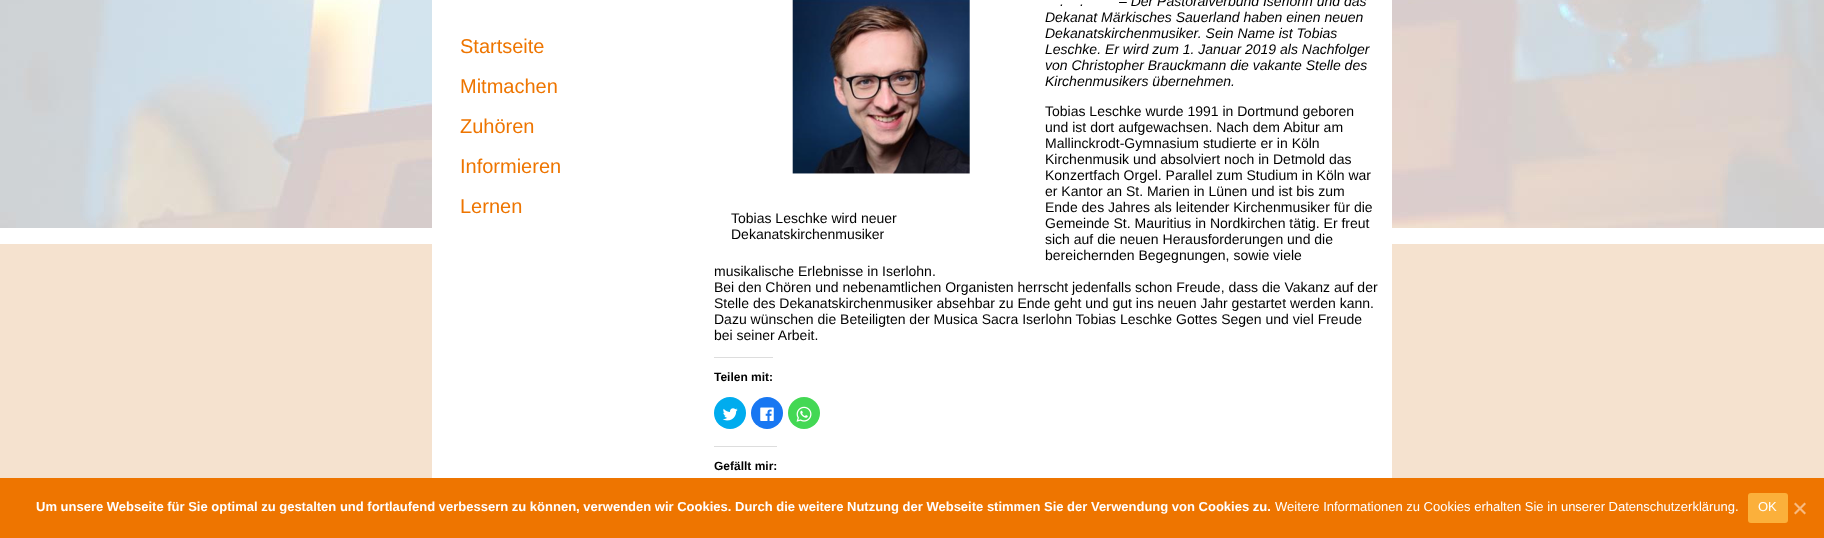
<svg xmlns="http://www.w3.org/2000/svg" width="1824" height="538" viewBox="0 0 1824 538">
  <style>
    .t1 { font: 20px Liberation Sans; fill: #ee7500; }
    .t2 { font: italic 14px Liberation Sans; fill: #000; }
    .t3 { font: 14px Liberation Sans; fill: #000; }
    .t4 { font: bold 12px Liberation Sans; fill: #000; }
    .t5 { font: bold 13px Liberation Sans; fill: #fff; }
    .t6 { font: 13px Liberation Sans; fill: #fff; }
  </style>
  <rect width="100%" height="100%" fill="#f5e2cf"/>
  <image x="0" y="0" width="1824" height="244" href="images/1.png"/>
  <rect x="432" y="0" width="960" height="478" fill="#fff"/>
  <text x="460" y="53" class="t1">Startseite</text>
  <text x="460" y="93" class="t1">Mitmachen</text>
  <text x="460" y="133" class="t1">Zuhören</text>
  <text x="460" y="173" class="t1">Informieren</text>
  <text x="460" y="213" class="t1">Lernen</text>
  <text x="1060" y="6" class="t2">.</text>
  <text x="1080" y="6" class="t2">.</text>
  <text x="1119" y="6" class="t2">– Der Pastoralverbund Iserlohn und das</text>
  <text x="1045" y="22" class="t2">Dekanat Märkisches Sauerland haben einen neuen</text>
  <text x="1045" y="38" class="t2">Dekanatskirchenmusiker. Sein Name ist Tobias</text>
  <text x="1045" y="54" class="t2">Leschke. Er wird zum 1. Januar 2019 als Nachfolger</text>
  <text x="1045" y="70" class="t2">von Christopher Brauckmann die vakante Stelle des</text>
  <text x="1045" y="86" class="t2">Kirchenmusikers übernehmen.</text>
  <text x="1045" y="116" class="t3">Tobias Leschke wurde 1991 in Dortmund geboren</text>
  <text x="1045" y="132" class="t3">und ist dort aufgewachsen. Nach dem Abitur am</text>
  <text x="1045" y="148" class="t3">Mallinckrodt-Gymnasium studierte er in Köln</text>
  <text x="1045" y="164" class="t3">Kirchenmusik und absolviert noch in Detmold das</text>
  <text x="1045" y="180" class="t3">Konzertfach Orgel. Parallel zum Studium in Köln war</text>
  <text x="1045" y="196" class="t3">er Kantor an St. Marien in Lünen und ist bis zum</text>
  <text x="1045" y="212" class="t3">Ende des Jahres als leitender Kirchenmusiker für die</text>
  <text x="1045" y="228" class="t3">Gemeinde St. Mauritius in Nordkirchen tätig. Er freut</text>
  <text x="1045" y="244" class="t3">sich auf die neuen Herausforderungen und die</text>
  <text x="1045" y="260" class="t3">bereichernden Begegnungen, sowie viele</text>
  <text x="714" y="276" class="t3">musikalische Erlebnisse in Iserlohn.</text>
  <text x="714" y="292" class="t3">Bei den Chören und nebenamtlichen Organisten herrscht jedenfalls schon Freude, dass die Vakanz auf der</text>
  <text x="714" y="308" class="t3">Stelle des Dekanatskirchenmusiker absehbar zu Ende geht und gut ins neuen Jahr gestartet werden kann.</text>
  <text x="714" y="324" class="t3">Dazu wünschen die Beteiligten der Musica Sacra Iserlohn Tobias Leschke Gottes Segen und viel Freude</text>
  <text x="714" y="340" class="t3">bei seiner Arbeit.</text>
  <image x="792" y="0" width="178" height="174" href="images/2.png"/>
  <text x="731" y="223" class="t3">Tobias Leschke wird neuer</text>
  <text x="731" y="239" class="t3">Dekanatskirchenmusiker</text>
  <rect x="714" y="357" width="59" height="1" fill="#ddd"/>
  <text x="714" y="381" class="t4">Teilen mit:</text>
  <circle cx="730" cy="413" r="16" fill="#00acee"/>
  <image x="722" y="408" width="16" height="13" href="images/3.png"/>
  <circle cx="767" cy="413" r="16" fill="#1877f2"/>
  <image x="760" y="407" width="14" height="14" href="images/4.png"/>
  <circle cx="804" cy="413" r="16" fill="#43d854"/>
  <image x="796" y="406" width="16" height="16" href="images/5.png"/>
  <rect x="714" y="446" width="63" height="1" fill="#ddd"/>
  <text x="714" y="470" class="t4">Gefällt mir:</text>
  <rect x="0" y="478" width="1824" height="60" fill="#ee7500"/>
  <text x="36" y="511" class="t5">Um unsere Webseite für Sie optimal zu gestalten und fortlaufend verbessern zu können, verwenden wir Cookies. Durch die weitere Nutzung der Webseite stimmen Sie der Verwendung von Cookies zu.</text>
  <text x="1275" y="511" class="t6">Weitere Informationen zu Cookies erhalten Sie in unserer Datenschutzerklärung.</text>
  <rect x="1748" y="493" width="40" height="30" rx="3" fill="#fbb03b"/>
  <text x="1758" y="511" class="t6">OK</text>
  <path d="M1804.5 502.5L1806 504L1795.5 514.5L1794 513Z" fill="#f7ba80"/>
  <path d="M1794 504L1795.5 502.5L1806 513L1804.5 514.5Z" fill="#f7ba80"/>
</svg>
